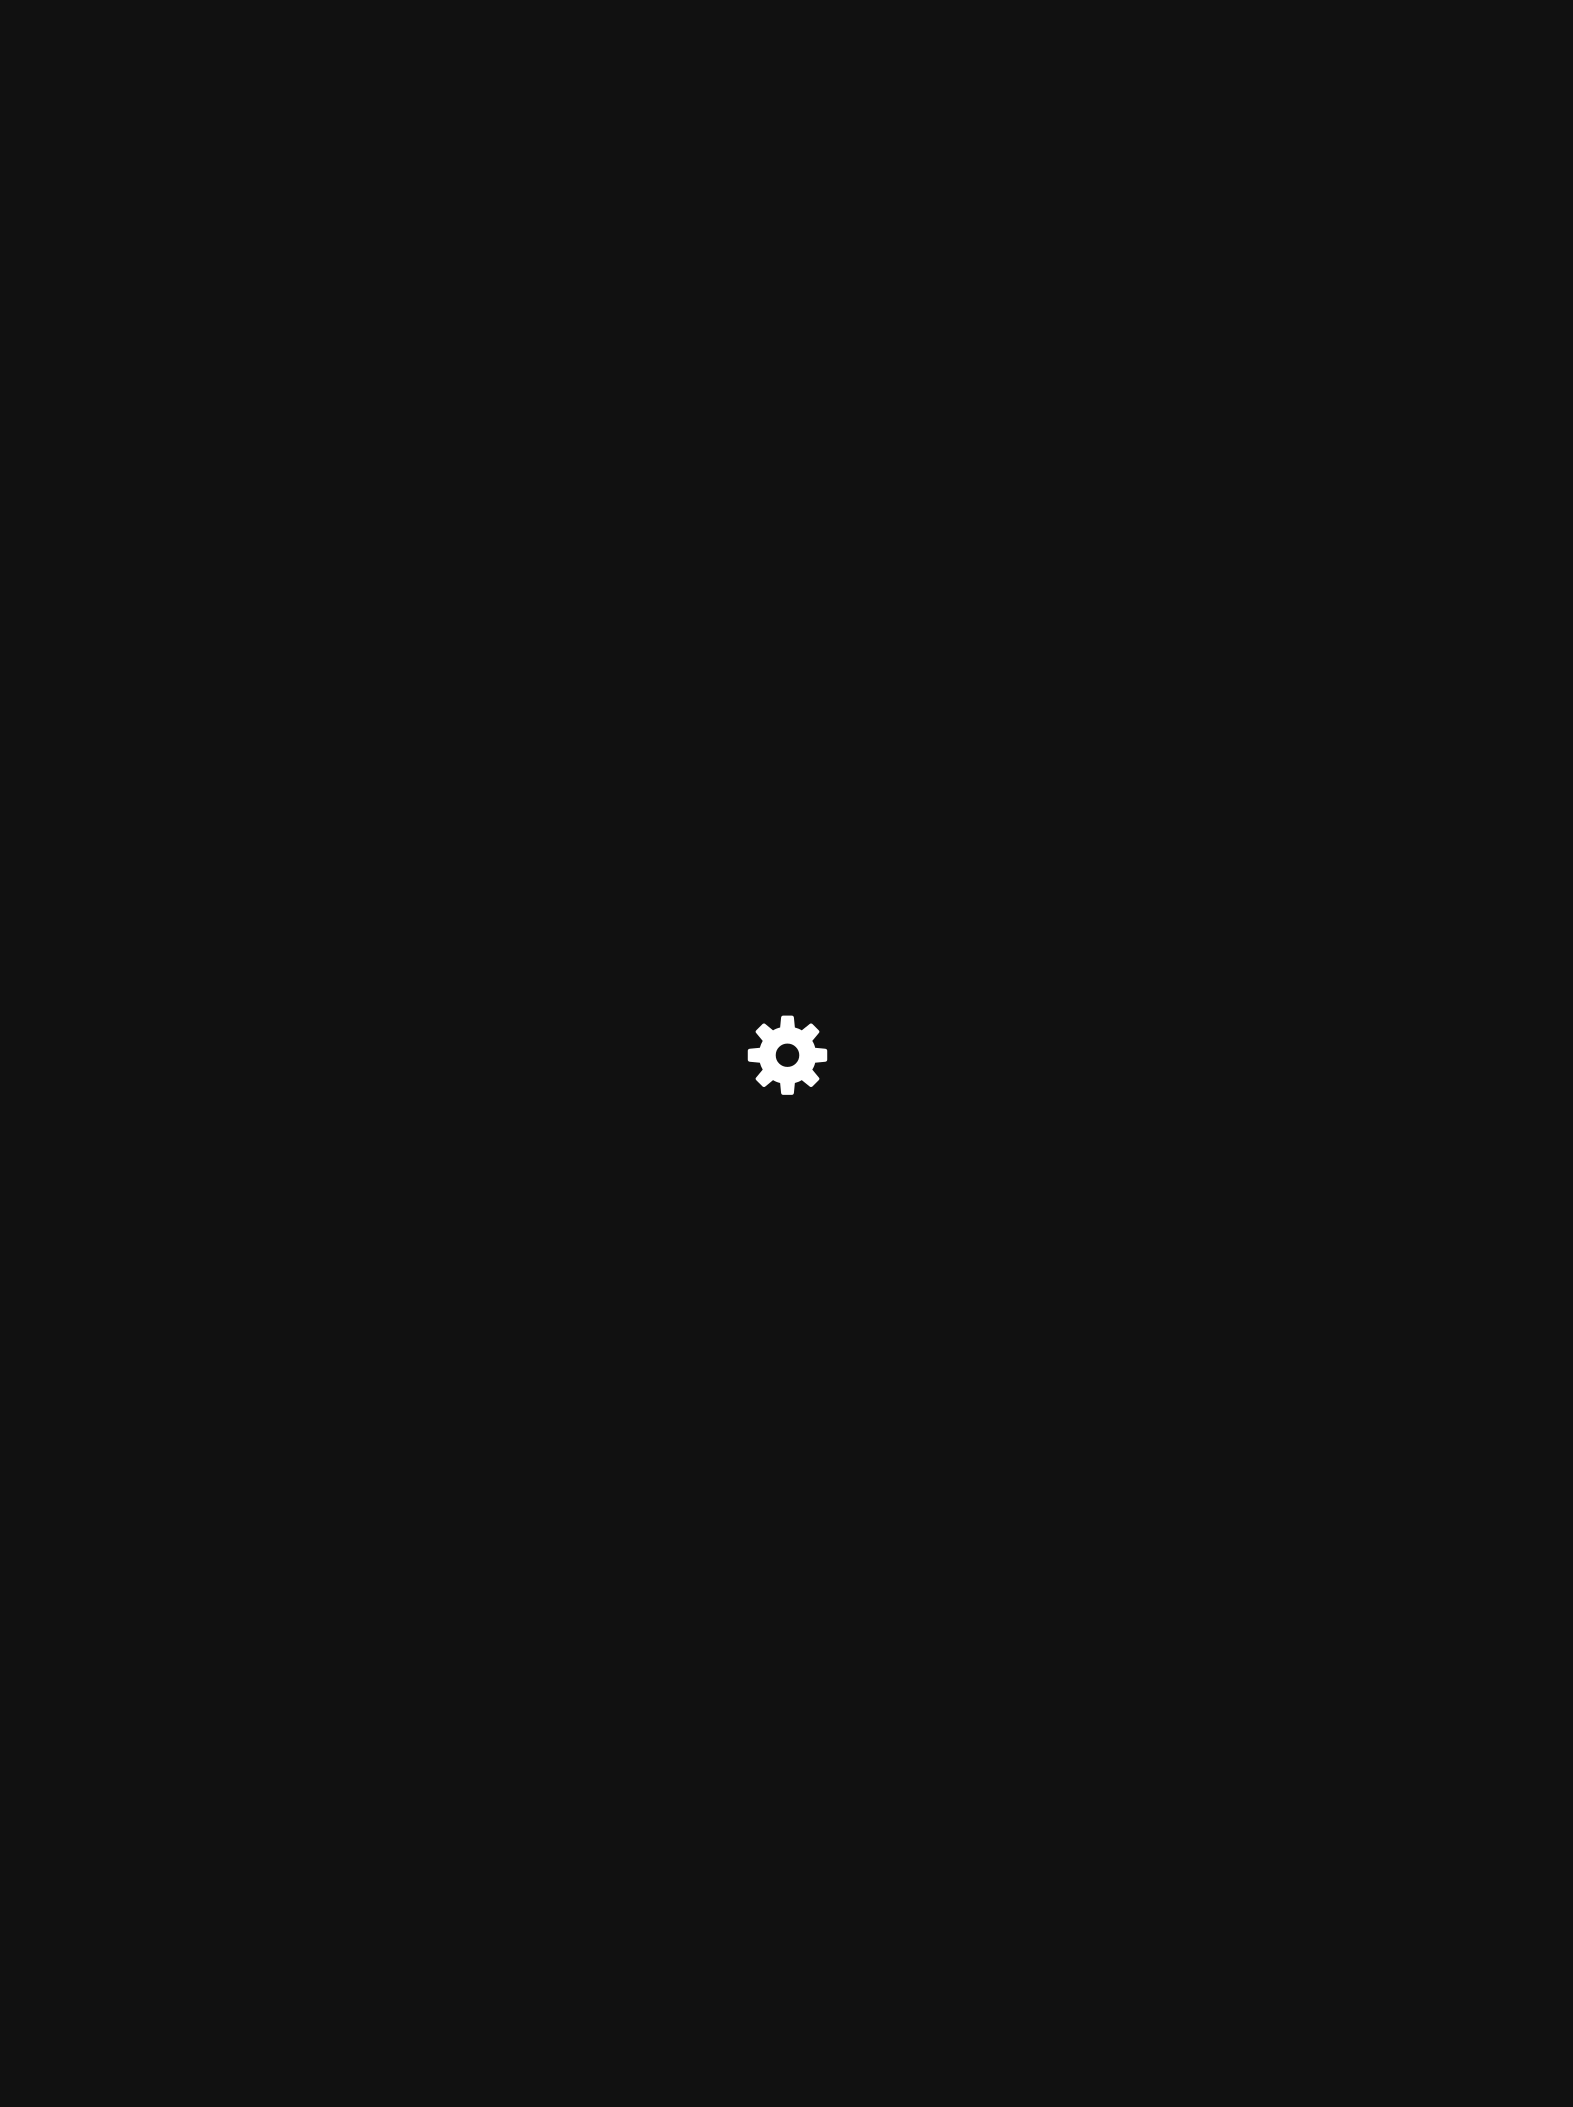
<svg xmlns="http://www.w3.org/2000/svg" width="1573" height="2107" viewBox="0 0 1573 2107">
  <rect width="100%" height="100%" fill="#111"/>
  <image x="747" y="1015" width="81" height="80" href="images/1.png"/>
</svg>
